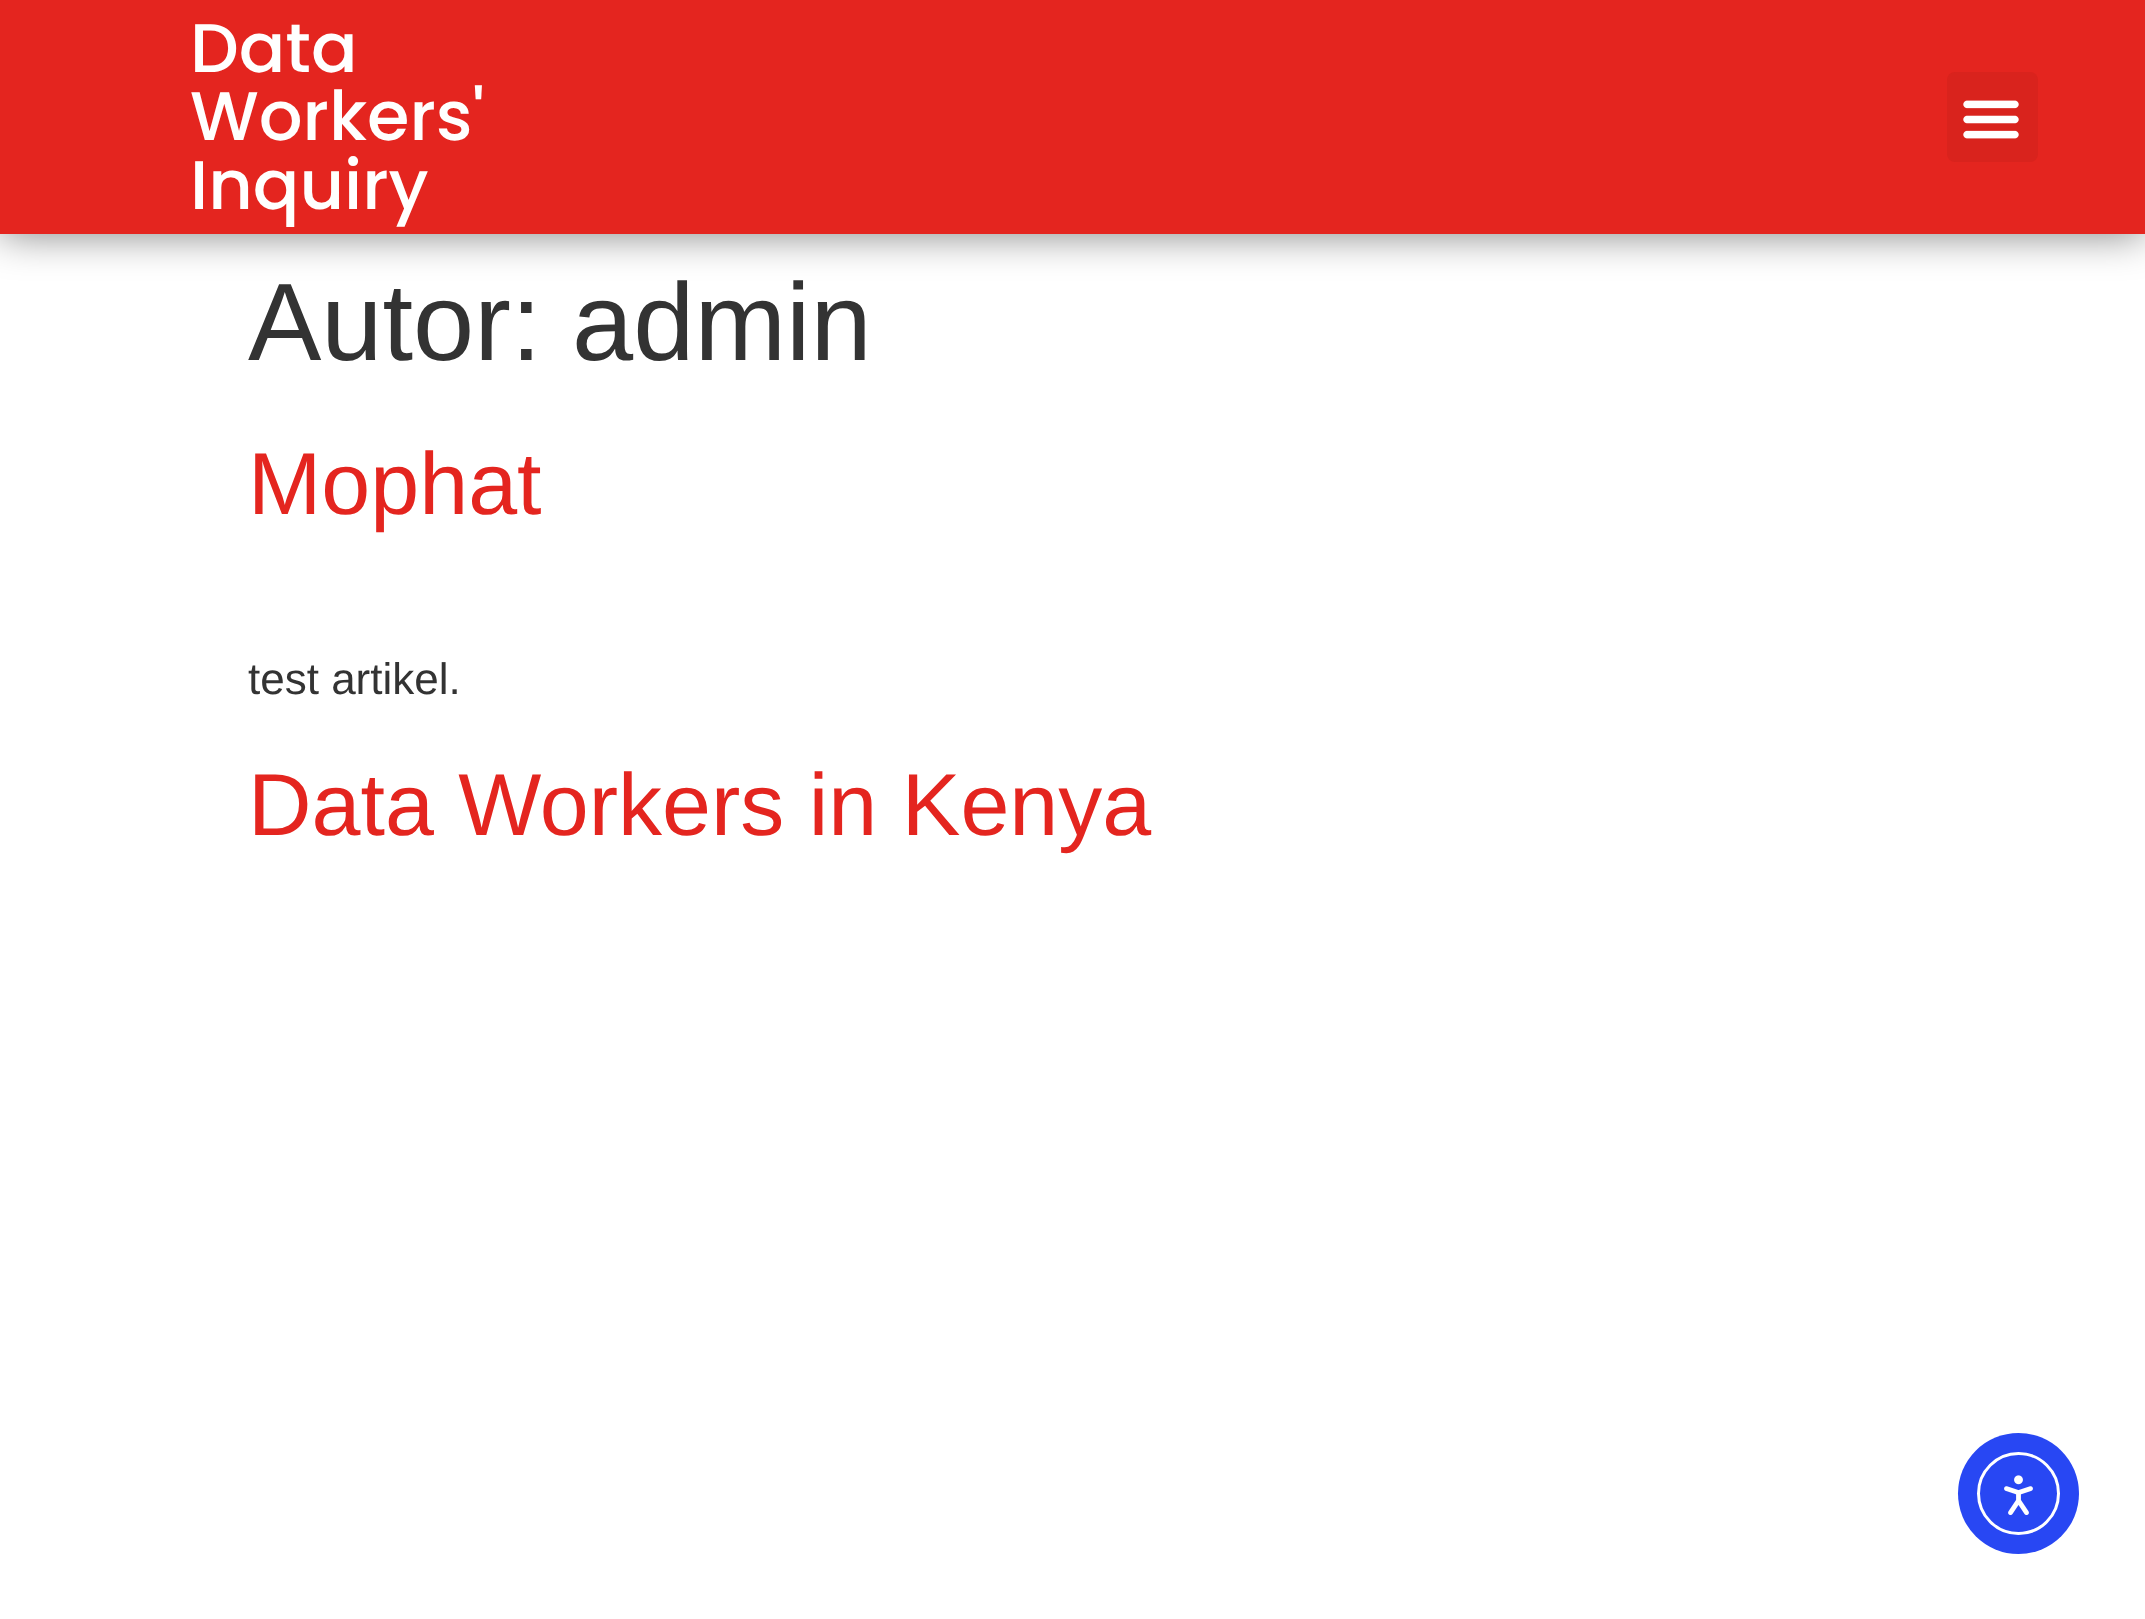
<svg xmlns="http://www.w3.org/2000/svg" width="2145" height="1619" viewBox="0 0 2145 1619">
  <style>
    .t1 { font: 500 68.75px Poppins; fill: #fffffe; }
    .t2 { font: 110px Liberation Sans; fill: #333; }
    .t3 { font: 88px Liberation Sans; fill: #e4251f; }
    .t4 { font: 44px Liberation Sans; fill: #333; }
  </style>
  <rect width="100%" height="100%" fill="#fff"/>
  <rect x="0" y="0" width="2145" height="234" fill="#00000080" filter="blur(20.5px)"/>
  <rect x="0" y="0" width="2145" height="234" fill="#e4251f"/>
  <text x="190" y="72" class="t1">Data</text>
  <text x="190" y="140" class="t1">Workers'</text>
  <text x="190" y="209" class="t1">Inquiry</text>
  <rect x="1947" y="72" width="91" height="90" rx="8" fill="#d9231d"/>
  <image x="1963" y="100" width="56" height="39" href="images/1.png"/>
  <text x="248" y="360" class="t2">Autor: admin</text>
  <text x="248" y="514" class="t3">Mophat</text>
  <text x="248" y="694" class="t4">test artikel.</text>
  <text x="248" y="835" class="t3">Data Workers in Kenya</text>
  <circle cx="2018.5" cy="1493.5" r="60.5" fill="#2847f3"/>
  <circle cx="2018.5" cy="1493.5" r="40" fill="none" stroke="#fff" stroke-width="3"/>
  <image x="2004" y="1475" width="29" height="41" href="images/2.png"/>
</svg>
